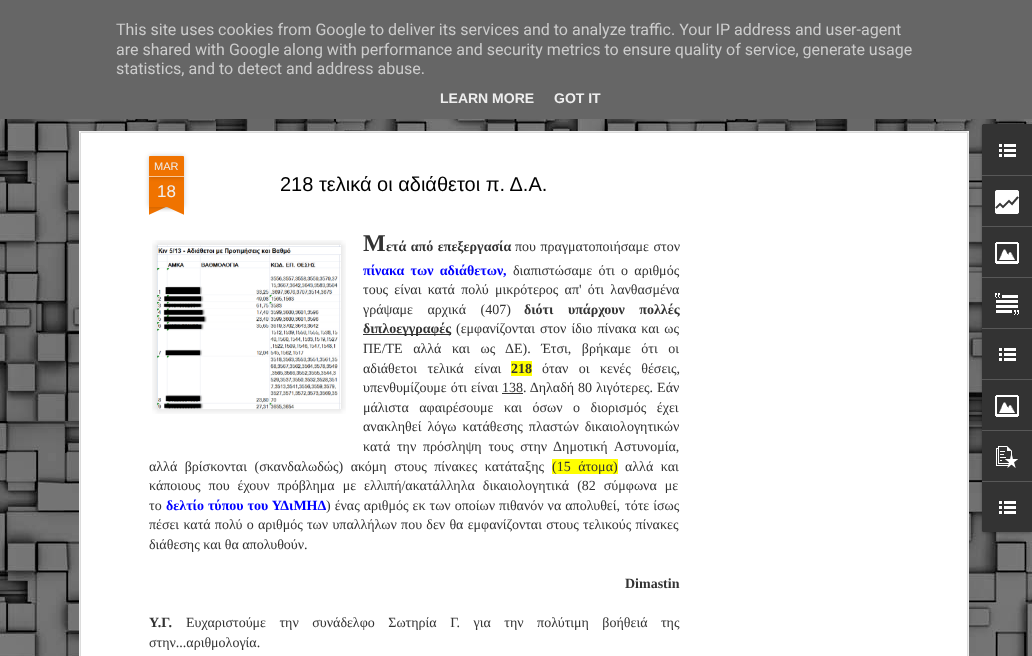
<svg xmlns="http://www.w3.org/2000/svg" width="1032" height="656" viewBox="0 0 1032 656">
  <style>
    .t1 { font: 16px Roboto; fill: #ccc; }
    .t2 { font: bold 14px Liberation Sans; fill: #eee; }
    .t3 { font: 11px Liberation Sans; fill: #eee; }
    .t4 { font: 17px Liberation Sans; fill: #eee; }
    .t5 { font: 20px Liberation Sans; fill: #000; }
    .t6 { font: bold 24px Liberation Serif; fill: #333; }
    .t7 { font: bold 14px Liberation Serif; fill: #333; }
    .t8 { font: 14px Liberation Serif; fill: #333; }
    .t9 { font: bold 14px Liberation Serif; fill: #00f; }
  </style>
  <defs>
    <clipPath id="clip1"><rect x="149" y="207" width="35" height="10"/></clipPath>
    <clipPath id="clip2"><rect x="149" y="207" width="35" height="10"/></clipPath>
  </defs>
  <rect width="100%" height="100%" fill="#fff"/>
  <rect x="0" y="0" width="1032" height="119" fill="#666"/>
  <text x="116" y="35" class="t1">This site uses cookies from Google to deliver its services and to analyze traffic. Your IP address and user-agent</text>
  <text x="116" y="55" class="t1">are shared with Google along with performance and security metrics to ensure quality of service, generate usage</text>
  <text x="116" y="74" class="t1">statistics, and to detect and address abuse.</text>
  <text x="440" y="103" class="t2">LEARN MORE</text>
  <text x="554" y="103" class="t2">GOT IT</text>
  <image x="0" y="119" width="1032" height="537" href="images/1.png"/>
  <rect x="79" y="131" width="890" height="525" fill="#fff"/>
  <image x="79" y="131" width="890" height="525" href="images/2.png"/>
  <rect x="149" y="177" width="35" height="30" fill="#00000033" filter="blur(2.5px)"/>
  <rect x="149" y="177" width="35" height="30" fill="#f07300"/>
  <rect x="149" y="156" width="35" height="21" rx="1" fill="#00000033" filter="blur(2.5px)"/>
  <path d="M150 156H183C183.5 156 184 156.5 184 157V177H149V157C149 156.5 149.5 156 150 156Z" fill="#f07300"/>
  <rect x="149" y="176" width="35" height="1" fill="#f9c799"/>
  <text x="154" y="170" class="t3">MAR</text>
  <text x="157" y="197" class="t4">18</text>
  <g clip-path="url(#clip1)">
    <rect x="140" y="197" width="50" height="10" fill="#00000033" filter="blur(2.5px)"/>
  </g>
  <g clip-path="url(#clip2)">
    <path d="M140 208L186 187L190 196L144 217Z" fill="#f07300"/>
  </g>
  <g clip-path="url(#clip1)">
    <rect x="143" y="197" width="50" height="10" fill="#00000033" filter="blur(2.5px)"/>
  </g>
  <g clip-path="url(#clip2)">
    <path d="M147 187L193 208L189 217L143 196Z" fill="#f07300"/>
  </g>
  <text x="280" y="191" class="t5">218 τελικά οι αδιάθετοι π. Δ.Α.</text>
  <text x="363" y="251" class="t6">Μ</text>
  <text x="386" y="251" word-spacing="1" class="t7">ετά από επεξεργασία</text>
  <text x="515" y="251" word-spacing="1" class="t8">που πραγματοποιήσαμε στον</text>
  <text x="363" y="275" word-spacing="2.75" class="t9">πίνακα των αδιάθετων</text>
  <text x="503" y="275" class="t9">,</text>
  <text x="513" y="275" word-spacing="2.75" class="t8">διαπιστώσαμε ότι ο αριθμός</text>
  <text x="363" y="294" word-spacing="2.75" class="t8">τους είναι κατά πολύ μικρότερος απ' ότι λανθασμένα</text>
  <text x="363" y="314" word-spacing="11" class="t8">γράψαμε αρχικά (407)</text>
  <text x="524" y="314" word-spacing="11" class="t7">διότι υπάρχουν πολλές</text>
  <rect x="363" y="334" width="88" height="1" fill="#333"/>
  <text x="363" y="333" class="t7">διπλοεγγραφές</text>
  <text x="456" y="333" word-spacing="1.5" class="t8">(εμφανίζονται στον ίδιο πίνακα και ως</text>
  <text x="363" y="353" word-spacing="7" class="t8">ΠΕ/ΤΕ αλλά και ως ΔΕ). Έτσι, βρήκαμε ότι οι</text>
  <text x="363" y="373" word-spacing="7" class="t8">αδιάθετοι τελικά είναι</text>
  <rect x="511" y="361" width="21" height="15" fill="#ff0"/>
  <text x="511" y="373" class="t7">218</text>
  <text x="542" y="373" word-spacing="7" class="t8">όταν οι κενές θέσεις,</text>
  <text x="363" y="392" word-spacing="0.5" class="t8">υπενθυμίζουμε ότι είναι</text>
  <text x="502" y="392" class="t8">138</text>
  <text x="523" y="392" word-spacing="0.5" class="t8">. Δηλαδή 80 λιγότερες. Εάν</text>
  <rect x="502" y="393" width="21" height="1" fill="#333"/>
  <text x="363" y="412" word-spacing="7" class="t8">μάλιστα αφαιρέσουμε και όσων ο διορισμός έχει</text>
  <text x="363" y="431" word-spacing="2.5" class="t8">ανακληθεί λόγω κατάθεσης πλαστών δικαιολογητικών</text>
  <text x="363" y="451" word-spacing="3.25" class="t8">κατά την πρόσληψη τους στην Δημοτική Αστυνομία,</text>
  <text x="149" y="471" word-spacing="4" class="t8">αλλά βρίσκονται (σκανδαλωδώς) ακόμη στους πίνακες κατάταξης</text>
  <rect x="552" y="459" width="66" height="15" fill="#ff0"/>
  <text x="552" y="471" word-spacing="4" class="t8">(15 άτομα)</text>
  <text x="625" y="471" word-spacing="4" class="t8">αλλά και</text>
  <text x="149" y="490" word-spacing="4.5" class="t8">κάποιους που έχουν πρόβλημα με ελλιπή/ακατάλληλα δικαιολογητικά (82 σύμφωνα με</text>
  <text x="149" y="510" class="t8">το</text>
  <text x="166" y="510" word-spacing="0.5" class="t9">δελτίο τύπου του ΥΔιΜΗΔ</text>
  <text x="326" y="510" word-spacing="0.5" class="t8">) ένας αριθμός εκ των οποίων πιθανόν να απολυθεί,</text>
  <text x="625" y="510" word-spacing="0.5" class="t8">τότε ίσως</text>
  <text x="149" y="529" word-spacing="0.75" class="t8">πέσει κατά πολύ ο αριθμός των υπαλλήλων που δεν θα εμφανίζονται στους τελικούς πίνακες</text>
  <text x="149" y="549" class="t8">διάθεσης και θα απολυθούν.</text>
  <image x="152" y="240" width="194" height="174" href="images/3.png"/>
  <image x="157" y="248" width="183" height="162" href="images/4.png"/>
  <text x="625" y="588" class="t7">Dimastin</text>
  <text x="149" y="627" class="t7">Υ.Γ.</text>
  <text x="186" y="627" word-spacing="10" class="t8">Ευχαριστούμε την συνάδελφο Σωτηρία Γ. για την πολύτιμη βοήθειά της</text>
  <text x="149" y="647" class="t8">στην...αριθμολογία.</text>
  <rect x="982" y="125" width="50" height="408" rx="2" fill="#0000004d" filter="blur(1.5px)"/>
  <path d="M984 124H1032V532H984C983 532 982 531 982 530V126C982 125 983 124 984 124Z" fill="#333"/>
  <path d="M984 124H1032V175H982V126C982 125 983 124 984 124Z" fill="#333"/>
  <image x="999" y="144" width="17" height="13" href="images/5.png"/>
  <rect x="982" y="175" width="50" height="1" fill="#585858"/>
  <image x="995" y="190" width="24" height="24" href="images/6.png"/>
  <rect x="982" y="226" width="50" height="1" fill="#585858"/>
  <image x="995" y="242" width="24" height="22" href="images/7.png"/>
  <rect x="982" y="277" width="50" height="1" fill="#585858"/>
  <image x="995" y="293" width="24" height="22" href="images/8.png"/>
  <rect x="982" y="328" width="50" height="1" fill="#585858"/>
  <image x="999" y="348" width="17" height="13" href="images/5.png"/>
  <rect x="982" y="379" width="50" height="1" fill="#585858"/>
  <image x="995" y="395" width="24" height="22" href="images/7.png"/>
  <rect x="982" y="430" width="50" height="1" fill="#585858"/>
  <image x="996" y="446" width="22" height="22" href="images/9.png"/>
  <path d="M982 481H1032V532H984C983 532 982 531 982 530Z" fill="#333"/>
  <rect x="982" y="481" width="50" height="1" fill="#585858"/>
  <image x="999" y="501" width="17" height="13" href="images/5.png"/>
</svg>
